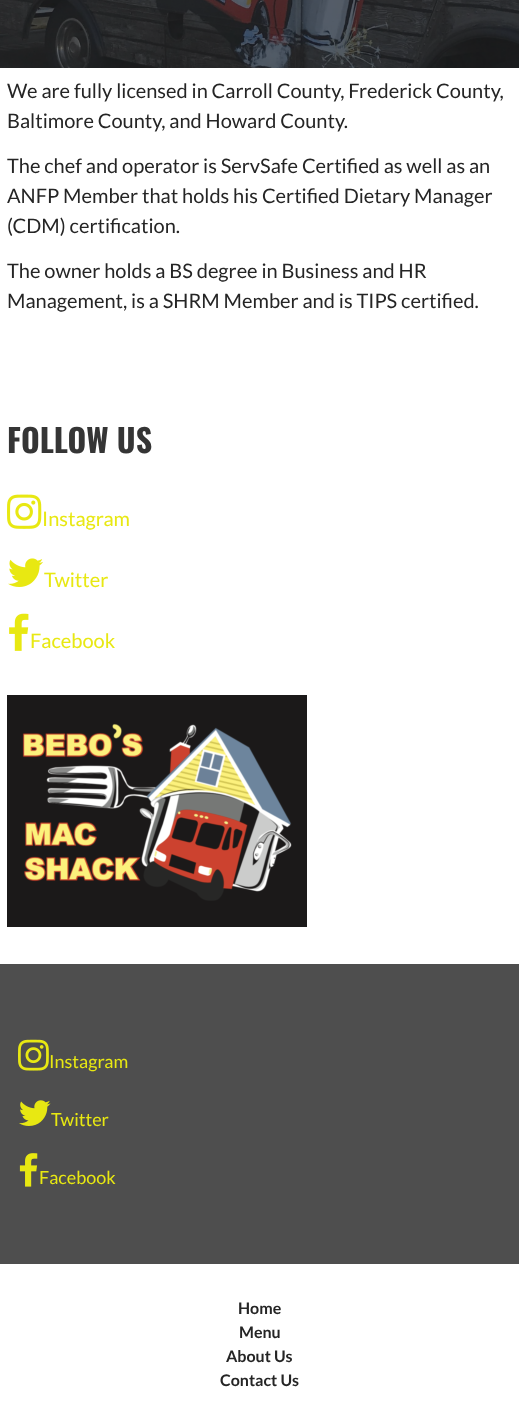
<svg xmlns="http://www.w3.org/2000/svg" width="519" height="1405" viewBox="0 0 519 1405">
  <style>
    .t1 { font: 20px Lato; fill: #252525; }
    .t2 { font: bold 32px Oswald; fill: #353535; }
    .t3 { font: 20px Lato; fill: #e8e812; }
    .t4 { font: 18px Lato; fill: #e8e812; }
    .t5 { font: bold 16px Lato; fill: #252525; }
  </style>
  <rect width="100%" height="100%" fill="#fff"/>
  <image x="0" y="0" width="519" height="68" href="images/1.png"/>
  <text x="7" y="98" class="t1">We are fully licensed in Carroll County, Frederick County,</text>
  <text x="7" y="128" class="t1">Baltimore County, and Howard County.</text>
  <text x="7" y="173" class="t1">The chef and operator is ServSafe Certified as well as an</text>
  <text x="7" y="203" class="t1">ANFP Member that holds his Certified Dietary Manager</text>
  <text x="7" y="233" class="t1">(CDM) certification.</text>
  <text x="7" y="278" class="t1">The owner holds a BS degree in Business and HR</text>
  <text x="7" y="308" class="t1">Management, is a SHRM Member and is TIPS certified.</text>
  <text x="7" y="453" class="t2">FOLLOW US</text>
  <image x="7" y="494" width="35" height="35" href="images/2.png"/>
  <text x="42" y="526" class="t3">Instagram</text>
  <image x="8" y="558" width="35" height="29" href="images/3.png"/>
  <text x="44" y="587" class="t3">Twitter</text>
  <image x="9" y="613" width="20" height="38" href="images/4.png"/>
  <text x="30" y="648" class="t3">Facebook</text>
  <image x="7" y="695" width="300" height="232" href="images/5.png"/>
  <rect x="0" y="964" width="519" height="300" fill="#4e4e4e"/>
  <image x="18" y="1039" width="31" height="32" href="images/6.png"/>
  <text x="49" y="1068" class="t4">Instagram</text>
  <image x="19" y="1100" width="32" height="26" href="images/7.png"/>
  <text x="51" y="1126" class="t4">Twitter</text>
  <image x="19" y="1153" width="19" height="34" href="images/8.png"/>
  <text x="39" y="1184" class="t4">Facebook</text>
  <text x="238" y="1314" class="t5">Home</text>
  <text x="239" y="1338" class="t5">Menu</text>
  <text x="226" y="1362" class="t5">About Us</text>
  <text x="220" y="1386" class="t5">Contact Us</text>
</svg>
